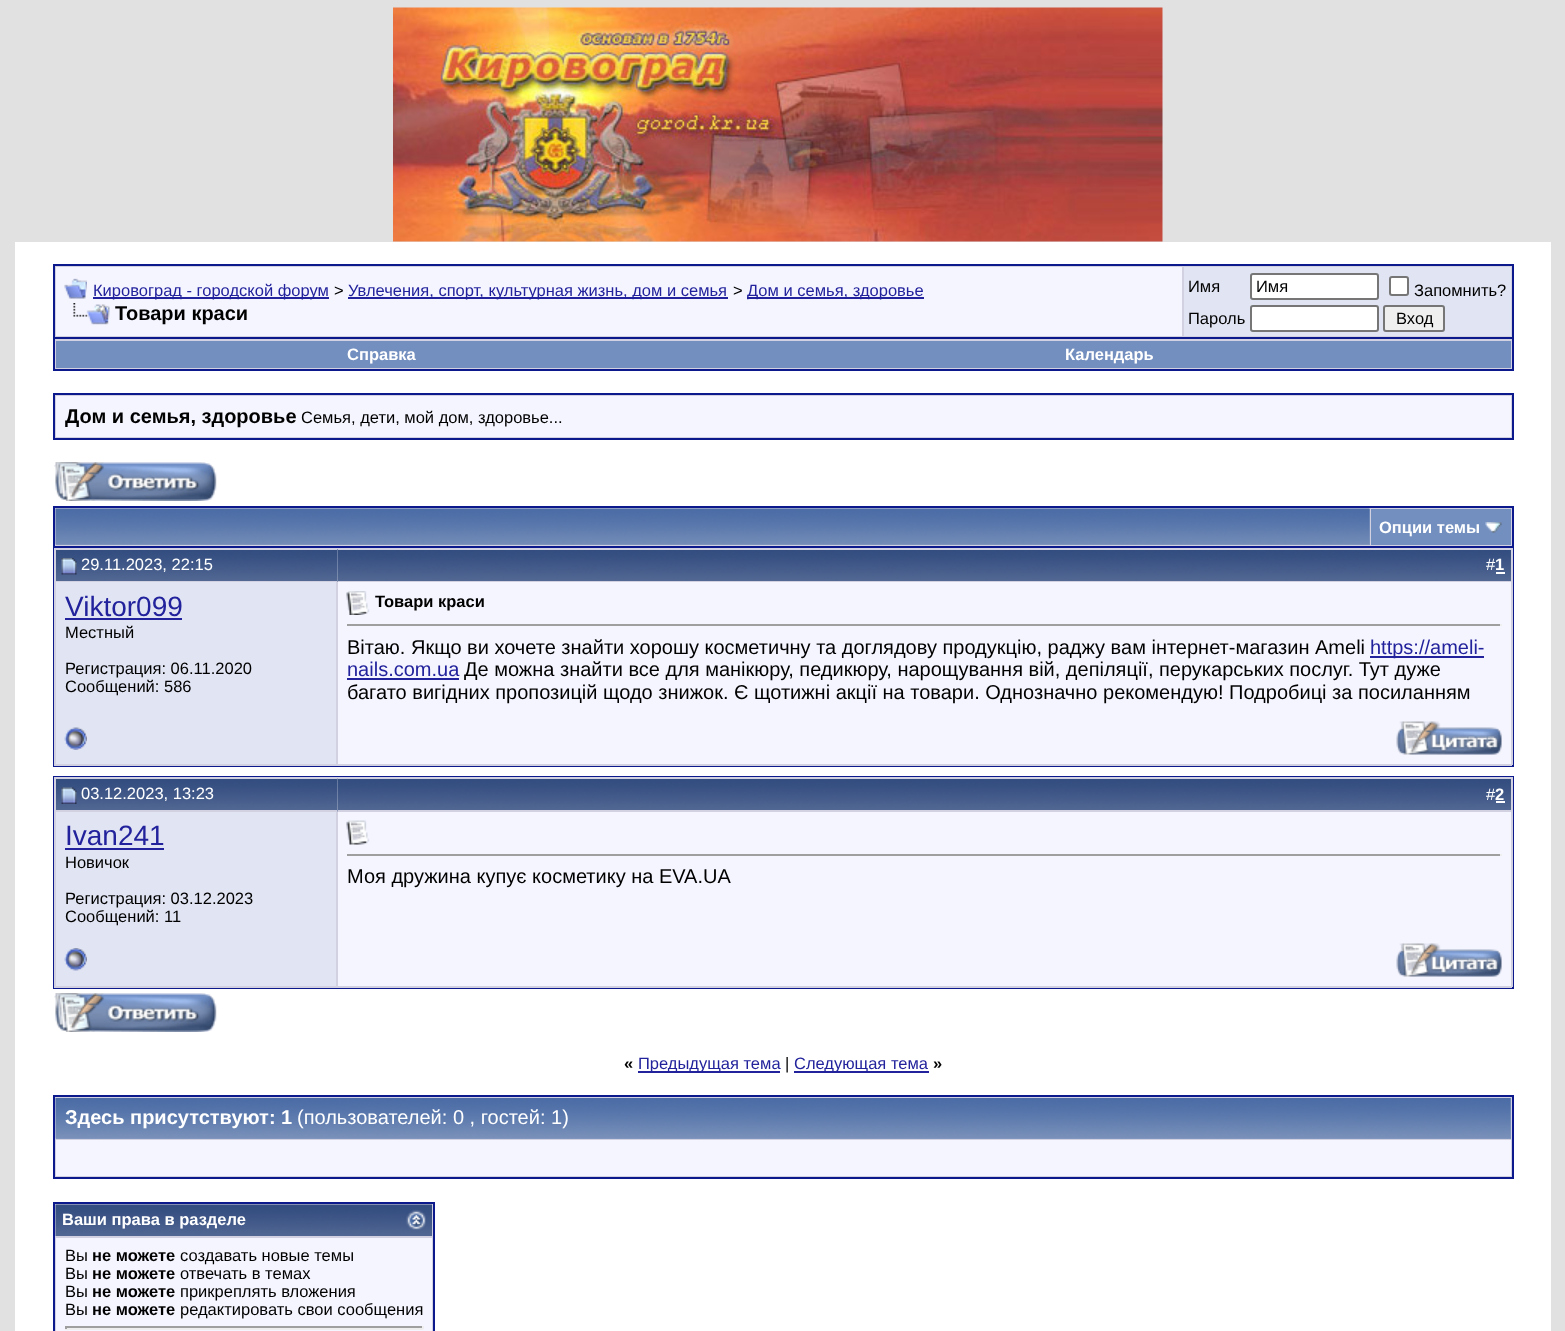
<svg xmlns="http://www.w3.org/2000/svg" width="1565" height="1331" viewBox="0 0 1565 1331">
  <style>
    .t1 { font: 16.5px Liberation Sans; fill: #22229c; }
    .t2 { font: 16.5px Liberation Sans; fill: #000; }
    .t3 { font: bold 20px Liberation Sans; fill: #000; }
    .t4 { font: bold 16.5px Liberation Sans; fill: #fff; }
    .t5 { font: 16.5px Liberation Sans; fill: #fff; }
    .t6 { font: 28px Liberation Sans; fill: #22229c; }
    .t7 { font: bold 16.5px Liberation Sans; fill: #000; }
    .t8 { font: 20px Liberation Sans; fill: #000; }
    .t9 { font: 20px Liberation Sans; fill: #22229c; }
    .t10 { font: bold 20px Liberation Sans; fill: #fff; }
    .t11 { font: 20px Liberation Sans; fill: #fff; }
  </style>
  <rect width="100%" height="100%" fill="#e1e1e2"/>
  <image x="393" y="7" width="770" height="235" href="images/1.png"/>
  <rect x="15" y="242" width="1536" height="1089" fill="#fff"/>
  <rect x="54" y="265" width="1459" height="73" fill="#d1d1e1" stroke="#0b198c" stroke-width="2"/>
  <rect x="56" y="267" width="1126" height="69" fill="#f5f5ff"/>
  <image x="64" y="278" width="23" height="21" href="images/2.png"/>
  <rect x="93" y="297" width="236" height="2" fill="#22229c"/>
  <text x="93" y="296" class="t1">Кировоград - городской форум</text>
  <text x="334" y="296" class="t2">&gt;</text>
  <rect x="348" y="297" width="380" height="2" fill="#22229c"/>
  <text x="348" y="296" class="t1">Увлечения, спорт, культурная жизнь, дом и семья</text>
  <text x="733" y="296" class="t2">&gt;</text>
  <rect x="747" y="297" width="177" height="2" fill="#22229c"/>
  <text x="747" y="296" class="t1">Дом и семья, здоровье</text>
  <image x="73" y="303" width="37" height="22" href="images/3.png"/>
  <text x="115" y="320" class="t3">Товари краси</text>
  <rect x="1184" y="267" width="327" height="69" fill="#e1e4f2"/>
  <text x="1188" y="292" class="t2">Имя</text>
  <rect x="1251" y="274" width="127" height="25" rx="2" fill="#fff" stroke="#767676" stroke-width="2"/>
  <text x="1256" y="292" class="t2">Имя</text>
  <rect x="1390" y="277" width="18" height="18" rx="2" fill="#fff" stroke="#767676" stroke-width="2"/>
  <text x="1414" y="296" class="t2">Запомнить?</text>
  <text x="1188" y="324" class="t2">Пароль</text>
  <rect x="1251" y="306" width="127" height="25" rx="2" fill="#fff" stroke="#767676" stroke-width="2"/>
  <rect x="1384" y="306" width="60" height="25" rx="2" fill="#efefef" stroke="#767676" stroke-width="2"/>
  <text x="1396" y="324" class="t2">Вход</text>
  <rect x="55" y="339" width="1457" height="30" fill="#d1d1e1"/>
  <rect x="1512" y="339" width="2" height="32" fill="#0b198c"/>
  <rect x="53" y="369" width="1461" height="2" fill="#0b198c"/>
  <rect x="53" y="339" width="2" height="32" fill="#0b198c"/>
  <rect x="56" y="341" width="1455" height="27" fill="#738fbf"/>
  <text x="347" y="360" class="t4">Справка</text>
  <text x="1065" y="360" class="t4">Календарь</text>
  <rect x="54" y="394" width="1459" height="45" fill="#d1d1e1" stroke="#0b198c" stroke-width="2"/>
  <rect x="56" y="396" width="1455" height="41" fill="#f5f5ff"/>
  <text x="65" y="423" class="t3">Дом и семья, здоровье</text>
  <text x="301" y="423" class="t2">Семья, дети, мой дом, здоровье...</text>
  <image x="54" y="462" width="163" height="39" href="images/4.png"/>
  <rect x="55" y="508" width="1457" height="38" fill="#d1d1e1"/>
  <rect x="53" y="506" width="1461" height="2" fill="#0b198c"/>
  <rect x="1512" y="506" width="2" height="40" fill="#0b198c"/>
  <rect x="53" y="506" width="2" height="40" fill="#0b198c"/>
  <rect x="56" y="509" width="1314" height="36" fill="#869bbf"/>
  <image x="55" y="508" width="1315" height="37" href="images/5.png"/>
  <rect x="1371" y="509" width="140" height="36" fill="#738fbf"/>
  <text x="1379" y="533" class="t4">Опции темы</text>
  <image x="1485" y="522" width="17" height="11" href="images/6.png"/>
  <rect x="54" y="547" width="1459" height="219" fill="none" stroke="#0b198c" stroke-width="2"/>
  <image x="56" y="550" width="282" height="31" href="images/7.png"/>
  <rect x="54" y="548" width="284" height="2" fill="#d1d1e1"/>
  <rect x="54" y="581" width="284" height="1" fill="#d1d1e1"/>
  <rect x="54" y="548" width="2" height="165" fill="#d1d1e1"/>
  <image x="61" y="558" width="16" height="17" href="images/8.png"/>
  <text x="81" y="570" class="t5">29.11.2023, 22:15</text>
  <image x="337" y="549" width="1174" height="33" href="images/9.png"/>
  <rect x="338" y="548" width="1174" height="2" fill="#d1d1e1"/>
  <rect x="1511" y="548" width="2" height="217" fill="#d1d1e1"/>
  <rect x="338" y="581" width="1174" height="1" fill="#d1d1e1"/>
  <text x="1486" y="570" class="t5">#</text>
  <text x="1495" y="570" class="t4">1</text>
  <rect x="1496" y="572" width="9" height="2" fill="#fff"/>
  <rect x="56" y="582" width="280" height="182" fill="#e1e4f2"/>
  <rect x="336" y="582" width="2" height="183" fill="#d1d1e1"/>
  <text x="65" y="616" class="t6">Viktor099</text>
  <rect x="65" y="618" width="117" height="2" fill="#22229c"/>
  <text x="65" y="638" class="t2">Местный</text>
  <text x="65" y="674" class="t2">Регистрация: 06.11.2020</text>
  <text x="65" y="692" class="t2">Сообщений: 586</text>
  <rect x="338" y="582" width="1173" height="182" fill="#f5f5ff"/>
  <image x="346" y="591" width="24" height="24" href="images/10.png"/>
  <text x="375" y="607" class="t7">Товари краси</text>
  <rect x="347" y="624" width="1155" height="2" fill="#9f9f9f"/>
  <rect x="1500" y="624" width="2" height="2" fill="#eee"/>
  <text x="347" y="654" class="t8">Вітаю. Якщо ви хочете знайти хорошу косметичну та доглядову продукцію, раджу вам інтернет-магазин Ameli</text>
  <rect x="1370" y="656" width="114" height="2" fill="#22229c"/>
  <text x="1370" y="654" class="t9">https://ameli-</text>
  <text x="347" y="676" class="t9">nails.com.ua</text>
  <rect x="347" y="678" width="112" height="2" fill="#22229c"/>
  <text x="464" y="676" class="t8">Де можна знайти все для манікюру, педикюру, нарощування вій, депіляції, перукарських послуг. Тут дуже</text>
  <text x="347" y="699" class="t8">багато вигідних пропозицій щодо знижок. Є щотижні акції на товари. Однозначно рекомендую! Подробиці за посиланням</text>
  <rect x="54" y="764" width="1458" height="2" fill="#d1d1e1"/>
  <rect x="54" y="713" width="2" height="52" fill="#d1d1e1"/>
  <image x="64" y="727" width="23" height="23" href="images/11.png"/>
  <image x="1396" y="721" width="106" height="34" href="images/12.png"/>
  <rect x="54" y="777" width="1459" height="211" fill="none" stroke="#0b198c" stroke-width="2"/>
  <image x="56" y="779" width="282" height="31" href="images/13.png"/>
  <rect x="54" y="777" width="284" height="2" fill="#d1d1e1"/>
  <rect x="54" y="810" width="284" height="2" fill="#d1d1e1"/>
  <rect x="54" y="777" width="2" height="158" fill="#d1d1e1"/>
  <image x="61" y="787" width="16" height="17" href="images/14.png"/>
  <text x="81" y="799" class="t5">03.12.2023, 13:23</text>
  <image x="337" y="778" width="1174" height="34" href="images/15.png"/>
  <rect x="338" y="777" width="1174" height="2" fill="#d1d1e1"/>
  <rect x="1511" y="777" width="2" height="210" fill="#d1d1e1"/>
  <rect x="338" y="810" width="1174" height="2" fill="#d1d1e1"/>
  <text x="1486" y="800" class="t5">#</text>
  <text x="1495" y="800" class="t4">2</text>
  <rect x="1496" y="801" width="9" height="2" fill="#fff"/>
  <rect x="56" y="812" width="280" height="174" fill="#e1e4f2"/>
  <rect x="336" y="812" width="2" height="175" fill="#d1d1e1"/>
  <text x="65" y="845" class="t6">Ivan241</text>
  <rect x="65" y="848" width="99" height="2" fill="#22229c"/>
  <text x="65" y="868" class="t2">Новичок</text>
  <text x="65" y="904" class="t2">Регистрация: 03.12.2023</text>
  <text x="65" y="922" class="t2">Сообщений: 11</text>
  <rect x="338" y="812" width="1173" height="174" fill="#f5f5ff"/>
  <image x="346" y="820" width="24" height="25" href="images/16.png"/>
  <rect x="347" y="854" width="1155" height="2" fill="#9f9f9f"/>
  <rect x="1500" y="854" width="2" height="2" fill="#eee"/>
  <text x="347" y="883" class="t8">Моя дружина купує косметику на EVA.UA</text>
  <rect x="54" y="986" width="1458" height="2" fill="#d1d1e1"/>
  <rect x="54" y="935" width="2" height="52" fill="#d1d1e1"/>
  <image x="64" y="948" width="23" height="23" href="images/17.png"/>
  <image x="1396" y="943" width="106" height="34" href="images/12.png"/>
  <image x="54" y="993" width="163" height="39" href="images/4.png"/>
  <text x="624" y="1069" class="t7">«</text>
  <rect x="638" y="1071" width="142" height="2" fill="#22229c"/>
  <text x="638" y="1069" class="t1">Предыдущая тема</text>
  <text x="785" y="1069" class="t2">|</text>
  <rect x="794" y="1071" width="135" height="2" fill="#22229c"/>
  <text x="794" y="1069" class="t1">Следующая тема</text>
  <text x="933" y="1069" class="t7">»</text>
  <rect x="54" y="1096" width="1459" height="82" fill="#d1d1e1" stroke="#0b198c" stroke-width="2"/>
  <rect x="56" y="1098" width="1455" height="41" fill="#869bbf"/>
  <image x="55" y="1098" width="1456" height="41" href="images/18.png"/>
  <text x="65" y="1124" class="t10">Здесь присутствуют: 1</text>
  <text x="297" y="1124" class="t11">(пользователей: 0 , гостей: 1)</text>
  <rect x="56" y="1140" width="1455" height="36" fill="#f5f5ff"/>
  <rect x="54" y="1203" width="380" height="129" fill="#d1d1e1" stroke="#0b198c" stroke-width="2"/>
  <image x="55" y="1204" width="377" height="32" href="images/19.png"/>
  <text x="62" y="1225" class="t4">Ваши права в разделе</text>
  <image x="406" y="1210" width="20" height="20" href="images/20.png"/>
  <rect x="56" y="1238" width="376" height="93" fill="#f5f5ff"/>
  <text x="65" y="1261" class="t2">Вы</text>
  <text x="92" y="1261" class="t7">не можете</text>
  <text x="180" y="1261" class="t2">создавать новые темы</text>
  <text x="65" y="1279" class="t2">Вы</text>
  <text x="92" y="1279" class="t7">не можете</text>
  <text x="180" y="1279" class="t2">отвечать в темах</text>
  <text x="65" y="1297" class="t2">Вы</text>
  <text x="92" y="1297" class="t7">не можете</text>
  <text x="180" y="1297" class="t2">прикреплять вложения</text>
  <text x="65" y="1315" class="t2">Вы</text>
  <text x="92" y="1315" class="t7">не можете</text>
  <text x="180" y="1315" class="t2">редактировать свои сообщения</text>
  <rect x="65" y="1326" width="358" height="2" fill="#9f9f9f"/>
  <rect x="422" y="1326" width="2" height="3" fill="#eee"/>
  <rect x="65" y="1328" width="358" height="2" fill="#eee"/>
  <rect x="65" y="1326" width="2" height="3" fill="#9f9f9f"/>
</svg>
